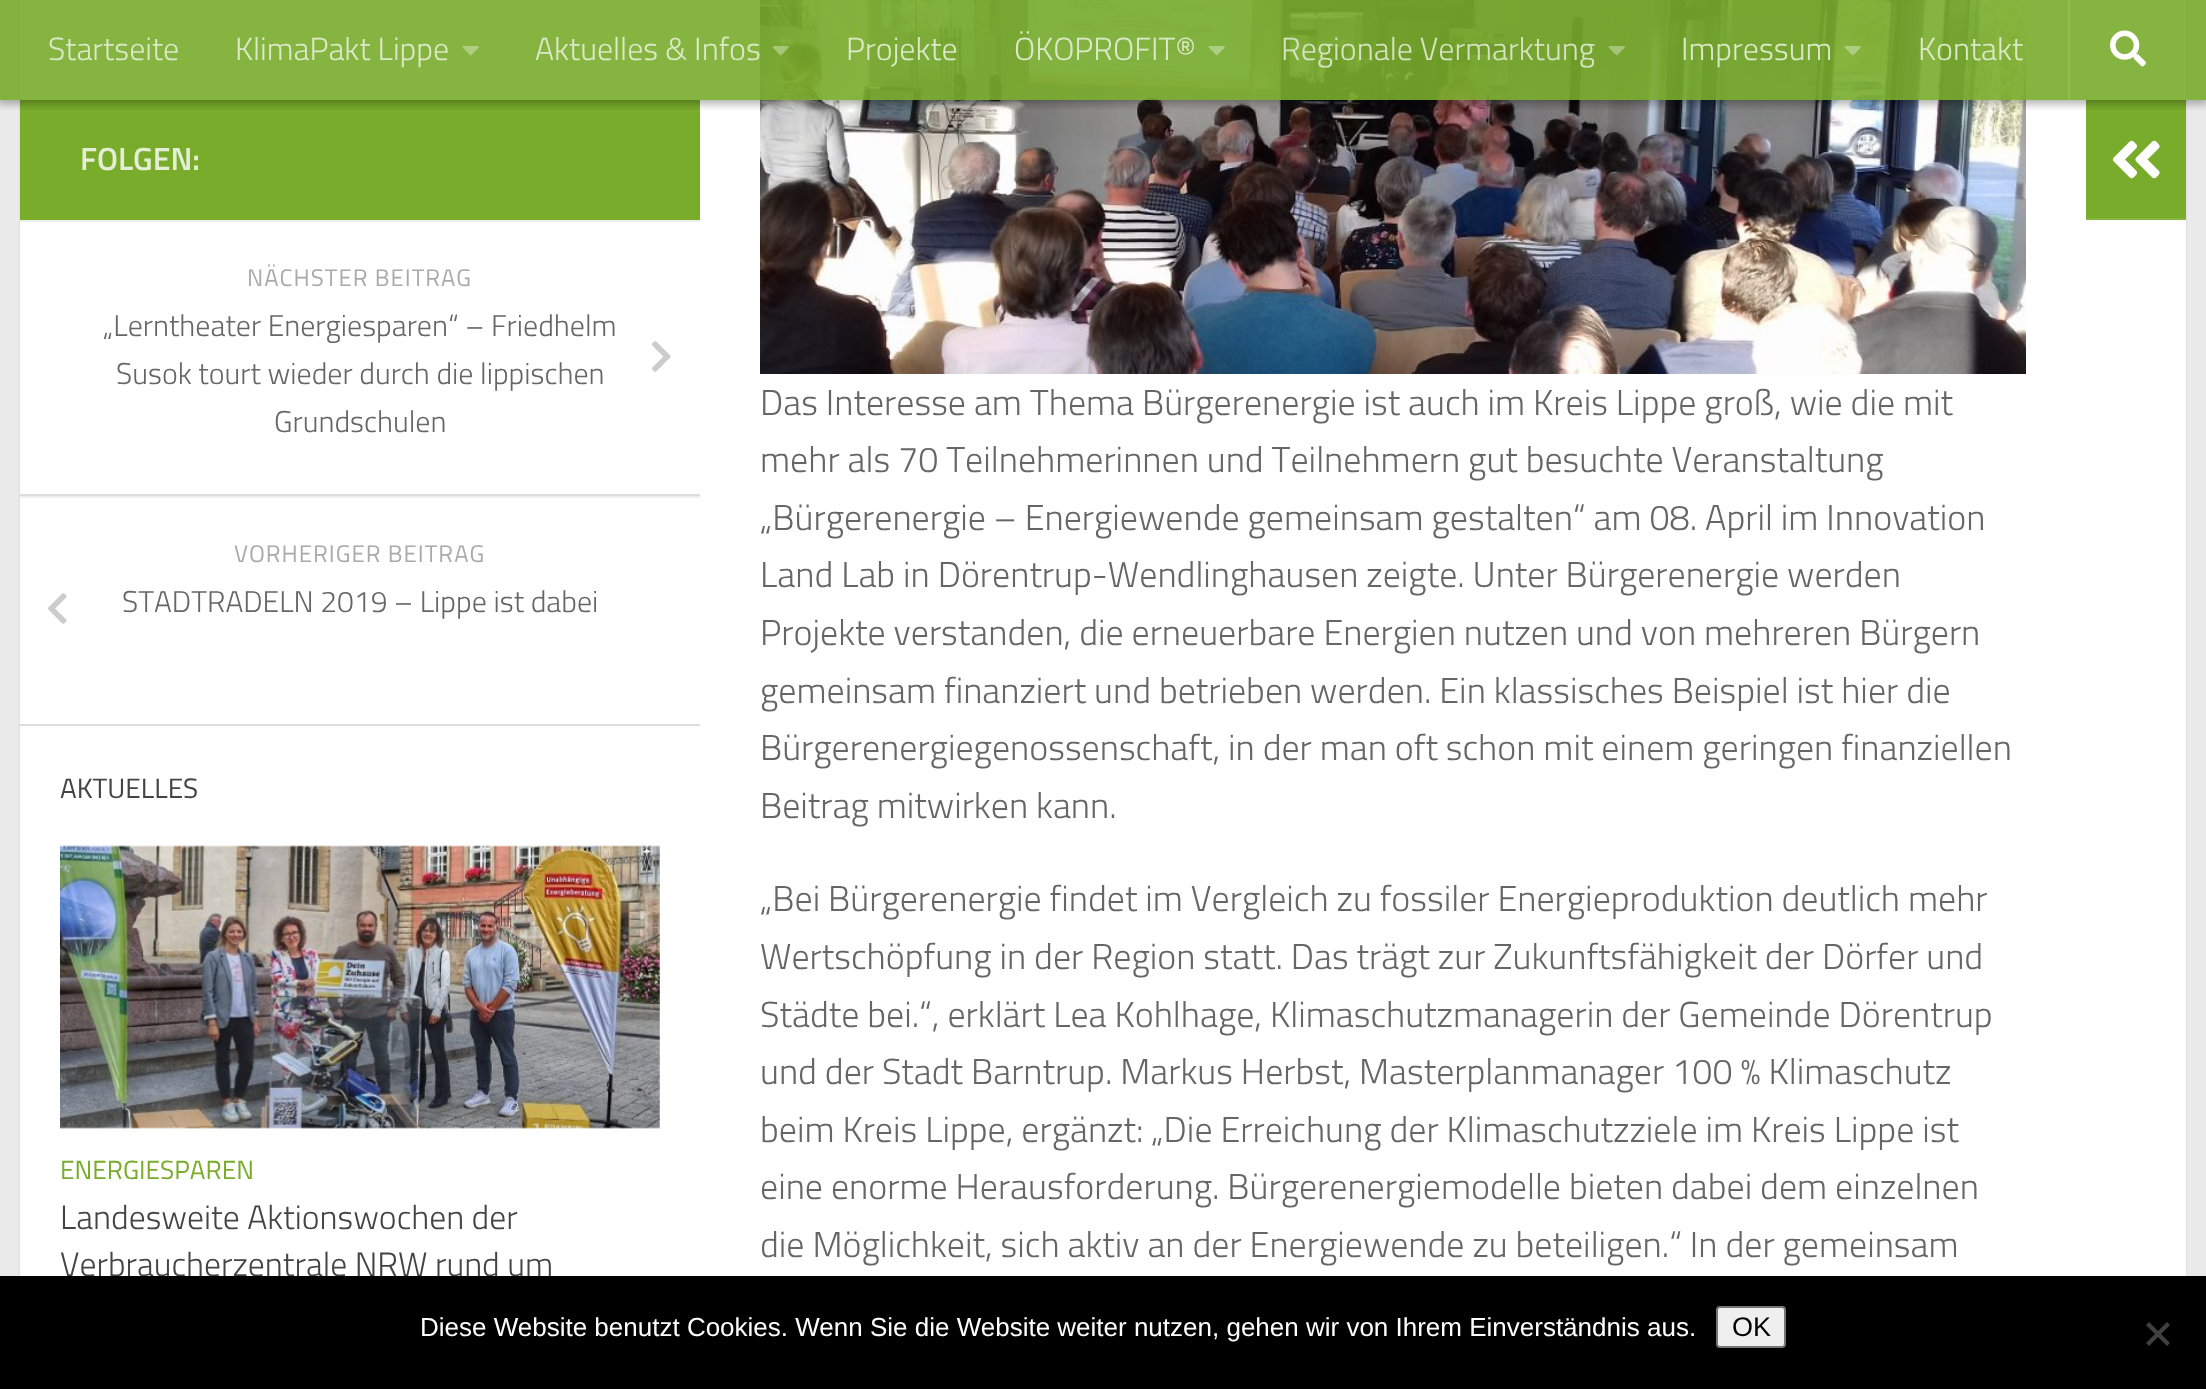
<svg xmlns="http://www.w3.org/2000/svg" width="2206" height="1389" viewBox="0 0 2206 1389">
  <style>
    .t1 { font: 300 32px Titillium; fill: #dbe9c6; }
    .t2 { font: 300 32px Titillium; fill: #d6e3c1; }
    .t3 { font: 600 32px Titillium; fill: #e4eed5; }
    .t4 { font: 24px Titillium; letter-spacing: 1px; fill: #aaa; }
    .t5 { font: 300 30px Titillium; fill: #666; }
    .t6 { font: 28px Titillium; fill: #444; }
    .t7 { font: 26.25px Titillium; fill: #79ac2b; }
    .t8 { font: 300 33.75px Titillium; fill: #444; }
    .t9 { font: 300 36px Titillium; fill: #666; }
    .t10 { font: 26px Liberation Sans; fill: #fff; }
    .t11 { font: 27px Liberation Sans; fill: #000; }
  </style>
  <defs>
    <clipPath id="clip1"><rect x="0" y="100" width="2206" height="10"/></clipPath>
  </defs>
  <rect width="100%" height="100%" fill="#eaeaea"/>
  <rect x="20" y="-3" width="2166" height="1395" fill="#0000001a" filter="blur(1px)"/>
  <rect x="20" y="0" width="2166" height="1276" fill="#fff"/>
  <rect x="20" y="100" width="680" height="120" fill="#79ac2b"/>
  <image x="760" y="0" width="1266" height="374" href="images/10.png"/>
  <rect x="2086" y="100" width="100" height="118" fill="#79ac2b"/>
  <g clip-path="url(#clip1)">
    <rect x="-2" y="0" width="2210" height="104" fill="#0000004d" filter="blur(4px)"/>
  </g>
  <rect x="0" y="0" width="2206" height="100" fill="#79ac2be6"/>
  <text x="48" y="60" class="t1">Startseite</text>
  <text x="235" y="60" class="t1">KlimaPakt Lippe</text>
  <image x="462" y="46" width="17" height="10" href="images/1.png"/>
  <text x="535" y="60" class="t1">Aktuelles &amp; Infos</text>
  <image x="772" y="46" width="17" height="10" href="images/2.png"/>
  <text x="846" y="60" class="t1">Projekte</text>
  <text x="1014" y="60" class="t1">ÖKOPROFIT®</text>
  <image x="1208" y="46" width="17" height="10" href="images/3.png"/>
  <text x="1281" y="60" class="t2">Regionale Vermarktung</text>
  <image x="1608" y="46" width="17" height="10" href="images/4.png"/>
  <text x="1681" y="60" class="t1">Impressum</text>
  <image x="1844" y="46" width="17" height="10" href="images/5.png"/>
  <text x="1918" y="60" class="t1">Kontakt</text>
  <rect x="2068" y="0" width="2" height="100" fill="#92bc53"/>
  <image x="2110" y="30" width="36" height="37" href="images/6.png"/>
  <text x="80" y="170" class="t3">FOLGEN:</text>
  <rect x="20" y="220" width="680" height="2" fill="#eee"/>
  <rect x="20" y="494" width="680" height="2" fill="#ddd"/>
  <text x="247" y="286" class="t4">NÄCHSTER BEITRAG</text>
  <text x="103" y="336" class="t5">„Lerntheater Energiesparen“ – Friedhelm</text>
  <image x="652" y="341" width="19" height="31" href="images/7.png"/>
  <text x="116" y="384" class="t5">Susok tourt wieder durch die lippischen</text>
  <text x="274" y="432" class="t5">Grundschulen</text>
  <rect x="20" y="496" width="680" height="2" fill="#eee"/>
  <rect x="20" y="724" width="680" height="2" fill="#ddd"/>
  <text x="234" y="562" class="t4">VORHERIGER BEITRAG</text>
  <image x="48" y="593" width="19" height="31" href="images/8.png"/>
  <text x="122" y="612" class="t5">STADTRADELN 2019 – Lippe ist dabei</text>
  <text x="60" y="798" class="t6">AKTUELLES</text>
  <image x="60" y="845" width="600" height="284" href="images/9.png"/>
  <text x="60" y="1179" class="t7">ENERGIESPAREN</text>
  <text x="60" y="1229" class="t8">Landesweite Aktionswochen der</text>
  <text x="60" y="1276" class="t8">Verbraucherzentrale NRW rund um</text>
  <text x="760" y="415" class="t9">Das Interesse am Thema Bürgerenergie ist auch im Kreis Lippe groß, wie die mit</text>
  <text x="760" y="472" class="t9">mehr als 70 Teilnehmerinnen und Teilnehmern gut besuchte Veranstaltung</text>
  <text x="760" y="530" class="t9">„Bürgerenergie – Energiewende gemeinsam gestalten“ am 08. April im Innovation</text>
  <text x="760" y="587" class="t9">Land Lab in Dörentrup-Wendlinghausen zeigte. Unter Bürgerenergie werden</text>
  <text x="760" y="645" class="t9">Projekte verstanden, die erneuerbare Energien nutzen und von mehreren Bürgern</text>
  <text x="760" y="703" class="t9">gemeinsam finanziert und betrieben werden. Ein klassisches Beispiel ist hier die</text>
  <text x="760" y="760" class="t9">Bürgerenergiegenossenschaft, in der man oft schon mit einem geringen finanziellen</text>
  <text x="760" y="818" class="t9">Beitrag mitwirken kann.</text>
  <text x="760" y="911" class="t9">„Bei Bürgerenergie findet im Vergleich zu fossiler Energieproduktion deutlich mehr</text>
  <text x="760" y="969" class="t9">Wertschöpfung in der Region statt. Das trägt zur Zukunftsfähigkeit der Dörfer und</text>
  <text x="760" y="1027" class="t9">Städte bei.“, erklärt Lea Kohlhage, Klimaschutzmanagerin der Gemeinde Dörentrup</text>
  <text x="760" y="1084" class="t9">und der Stadt Barntrup. Markus Herbst, Masterplanmanager 100 % Klimaschutz</text>
  <text x="760" y="1142" class="t9">beim Kreis Lippe, ergänzt: „Die Erreichung der Klimaschutzziele im Kreis Lippe ist</text>
  <text x="760" y="1199" class="t9">eine enorme Herausforderung. Bürgerenergiemodelle bieten dabei dem einzelnen</text>
  <text x="760" y="1257" class="t9">die Möglichkeit, sich aktiv an der Energiewende zu beteiligen.“ In der gemeinsam</text>
  <rect x="2086" y="218" width="100" height="2" fill="#86b440"/>
  <image x="2112" y="140" width="48" height="39" href="images/11.png"/>
  <rect x="0" y="1276" width="2206" height="113" fill="#000"/>
  <text x="420" y="1336" class="t10">Diese Website benutzt Cookies. Wenn Sie die Website weiter nutzen, gehen wir von Ihrem Einverständnis aus.</text>
  <rect x="1717" y="1307" width="68" height="40" rx="3" fill="#efefef" stroke="#767676" stroke-width="2"/>
  <text x="1732" y="1336" class="t11">OK</text>
  <path d="M2167 1322L2170 1325L2149 1346L2146 1343Z" fill="#404040"/>
  <path d="M2146 1325L2149 1322L2170 1343L2167 1346Z" fill="#404040"/>
</svg>
